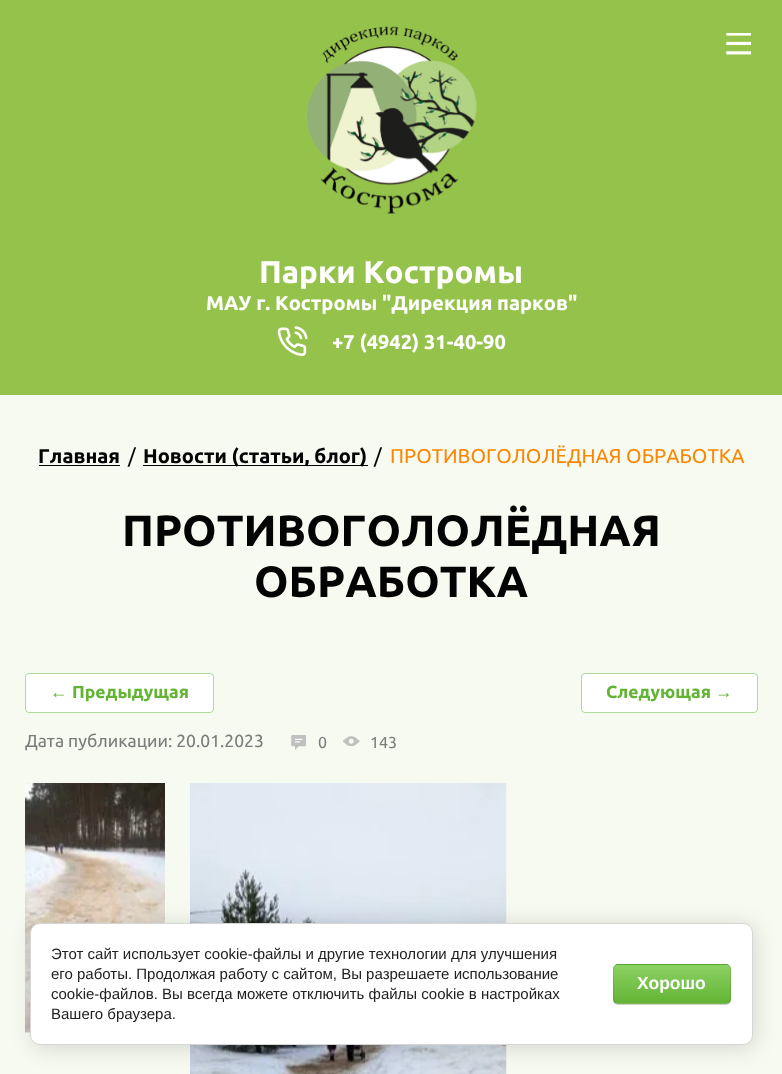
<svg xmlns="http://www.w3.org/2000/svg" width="782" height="1074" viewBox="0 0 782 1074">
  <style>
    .t1 { font: bold 31.25px Ubuntu; fill: #fff; }
    .t2 { font: bold 20px Ubuntu; fill: #fff; }
    .t3 { font: bold 20px Ubuntu; fill: #030303; }
    .t4 { font: 20px Ubuntu; fill: #030303; }
    .t5 { font: 20px Ubuntu; fill: #fa8704; }
    .t6 { font: bold 43.75px Ubuntu; fill: #030303; }
    .t7 { font: bold 17.5px Liberation Sans; fill: #63b435; }
    .t8 { font: bold 17.5px Ubuntu; fill: #63b435; }
    .t9 { font: 17.5px Ubuntu; fill: #7b7b7b; }
    .t10 { font: 16px Ubuntu; fill: #7b7b7b; }
    .t11 { font: 15px Liberation Sans; fill: #212121; }
    .t12 { font: bold 17.5px Liberation Sans; fill: #fff; }
  </style>
  <defs>
    <clipPath id="clip1"><rect x="613" y="964" width="118" height="40" rx="5"/></clipPath>
    <linearGradient id="g1" gradientUnits="userSpaceOnUse" x1="672" y1="928" x2="672" y2="965"><stop offset="0" stop-color="#8cd164"/><stop offset="1" stop-color="#63b435"/></linearGradient>
    <linearGradient id="g2" gradientUnits="userSpaceOnUse" x1="672" y1="965" x2="672" y2="1003"><stop offset="0" stop-color="#8cd164"/><stop offset="1" stop-color="#63b435"/></linearGradient>
    <linearGradient id="g3" gradientUnits="userSpaceOnUse" x1="672" y1="1003" x2="672" y2="1040"><stop offset="0" stop-color="#8cd164"/><stop offset="1" stop-color="#63b435"/></linearGradient>
  </defs>
  <rect width="100%" height="100%" fill="#f7faf1"/>
  <rect x="0" y="0" width="782" height="395" fill="#95c24b"/>
  <image x="726" y="33" width="25" height="22" href="images/1.png"/>
  <image x="306" y="26" width="171" height="188" href="images/2.png"/>
  <text x="259" y="283" class="t1">Парки Костромы</text>
  <text x="206" y="310" class="t2">МАУ г. Костромы "Дирекция парков"</text>
  <image x="277" y="326" width="31" height="31" href="images/3.png"/>
  <text x="332" y="349" class="t2">+7 (4942) 31-40-90</text>
  <text x="38" y="463" class="t3">Главная</text>
  <rect x="39" y="465" width="81" height="1" fill="#030303"/>
  <text x="128" y="463" class="t4">/</text>
  <rect x="143" y="465" width="225" height="1" fill="#030303"/>
  <text x="143" y="463" class="t3">Новости (статьи, блог)</text>
  <text x="374" y="463" class="t4">/</text>
  <text x="390" y="463" class="t5">ПРОТИВОГОЛОЛЁДНАЯ ОБРАБОТКА</text>
  <text x="122" y="546" class="t6">ПРОТИВОГОЛОЛЁДНАЯ</text>
  <text x="254" y="597" class="t6">ОБРАБОТКА</text>
  <rect x="25" y="673" width="189" height="40" rx="4" fill="#fff"/>
  <rect x="25.5" y="673.5" width="188" height="39" rx="3.5" fill="none" stroke="#63b43580"/>
  <text x="50" y="698" class="t7">←</text>
  <text x="72" y="698" class="t8">Предыдущая</text>
  <rect x="581" y="673" width="177" height="40" rx="4" fill="#fff"/>
  <rect x="581.5" y="673.5" width="176" height="39" rx="3.5" fill="none" stroke="#63b43580"/>
  <text x="606" y="698" class="t8">Следующая</text>
  <text x="715" y="698" class="t7">→</text>
  <text x="25" y="747" class="t9">Дата публикации: 20.01.2023</text>
  <image x="291" y="735" width="15" height="15" href="images/4.png"/>
  <text x="318" y="748" class="t10">0</text>
  <image x="343" y="736" width="17" height="10" href="images/5.png"/>
  <text x="370" y="748" class="t10">143</text>
  <image x="25" y="783" width="140" height="250" href="images/6.png"/>
  <image x="190" y="783" width="317" height="291" href="images/7.png"/>
  <rect x="33" y="925" width="722" height="123" rx="10" fill="#00000024" filter="blur(11px)"/>
  <rect x="30.5" y="923.5" width="722" height="121" rx="9.5" fill="#fff" stroke="#d6d6d6"/>
  <text x="51" y="959" class="t11">Этот сайт использует cookie-файлы и другие технологии для улучшения</text>
  <text x="51" y="979" class="t11">его работы. Продолжая работу с сайтом, Вы разрешаете использование</text>
  <text x="51" y="999" class="t11">cookie-файлов. Вы всегда можете отключить файлы cookie в настройках</text>
  <text x="51" y="1019" class="t11">Вашего браузера.</text>
  <rect x="613" y="965" width="118" height="40" rx="5" fill="#00000033" filter="blur(0.5px)"/>
  <g clip-path="url(#clip1)">
    <rect x="613" y="964" width="118" height="1" fill="url(#g1)"/>
    <rect x="613" y="965" width="118" height="38" fill="url(#g2)"/>
    <rect x="613" y="1003" width="118" height="1" fill="url(#g3)"/>
  </g>
  <rect x="613.5" y="964.5" width="117" height="39" rx="4.5" fill="none" stroke="#0000001a"/>
  <text x="637" y="989" class="t12">Хорошо</text>
</svg>
